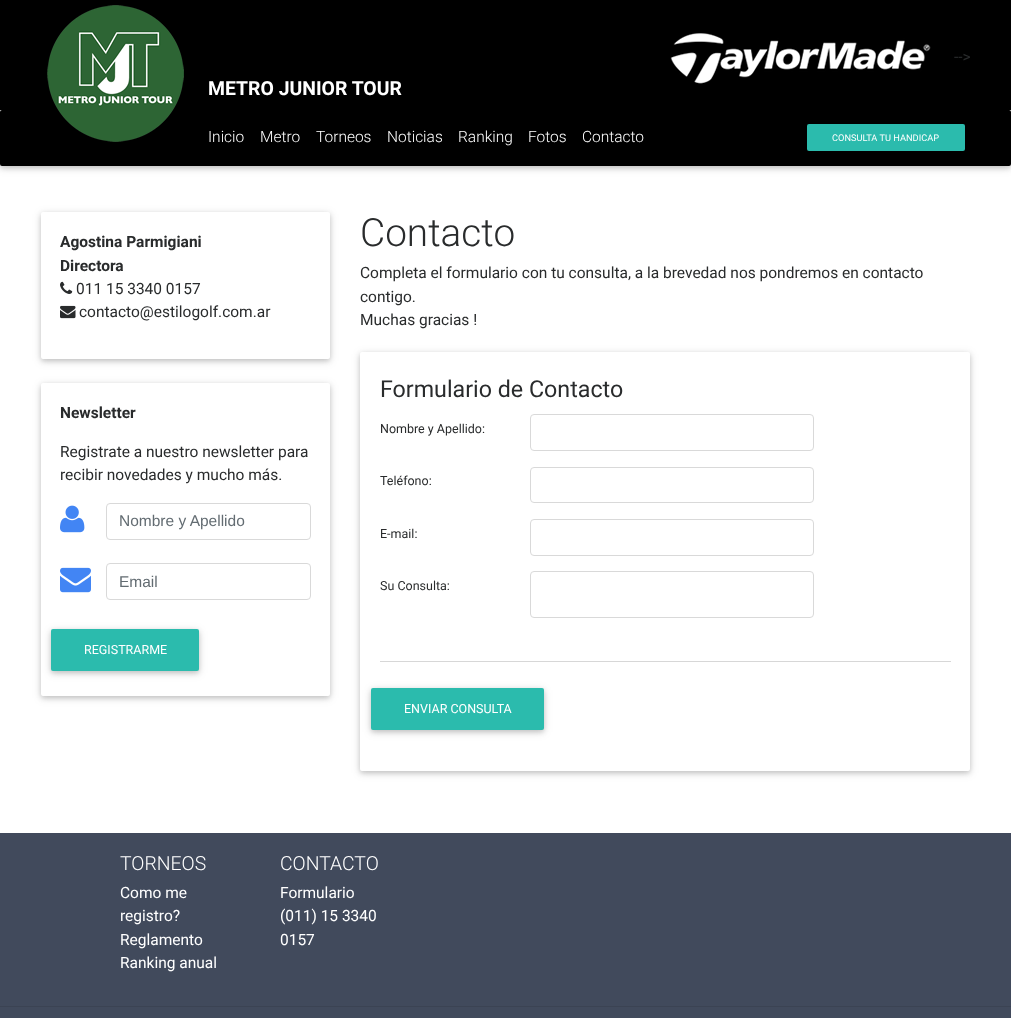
<svg xmlns="http://www.w3.org/2000/svg" width="1011" height="1018" viewBox="0 0 1011 1018">
  <style>
    .t1 { font: 15.5px Roboto; fill: #292b2c; }
    .t2 { font: bold 19.4px Roboto; fill: #fff; }
    .t3 { font: 300 15.5px Roboto; fill: #fff; }
    .t4 { font: 9.25px Roboto; fill: #fff; }
    .t5 { font: bold 15.5px Roboto; fill: #292b2c; }
    .t6 { font: 15.5px Liberation Sans; fill: #636c72; }
    .t7 { font: 12.5px Roboto; fill: #fff; }
    .t8 { font: 300 38.75px Roboto; fill: #292b2c; }
    .t9 { font: 23.25px Roboto; fill: #292b2c; }
    .t10 { font: 12.5px Roboto; fill: #292b2c; }
    .t11 { font: 300 19.4px Roboto; fill: #fff; }
    .t12 { font: 15.5px Roboto; fill: #fff; }
  </style>
  <rect width="100%" height="100%" fill="#fff"/>
  <rect x="0" y="0" width="1011" height="110" fill="#000"/>
  <image x="670" y="33" width="261" height="51" href="images/1.png"/>
  <text x="954" y="62" class="t1">--&gt;</text>
  <rect x="0" y="112" width="1011" height="56" rx="2" fill="#0000001f" filter="blur(5px)"/>
  <rect x="0" y="112" width="1011" height="56" rx="2" fill="#00000029" filter="blur(2.5px)"/>
  <rect x="0" y="110" width="1011" height="56" rx="2" fill="#000"/>
  <image x="47" y="5" width="137" height="137" href="images/2.png"/>
  <text x="208" y="95" class="t2">METRO JUNIOR TOUR</text>
  <text x="208" y="142" class="t3">Inicio</text>
  <text x="260" y="142" class="t3">Metro</text>
  <text x="316" y="142" class="t3">Torneos</text>
  <text x="387" y="142" class="t3">Noticias</text>
  <text x="458" y="142" class="t3">Ranking</text>
  <text x="528" y="142" class="t3">Fotos</text>
  <text x="582" y="142" class="t3">Contacto</text>
  <rect x="807" y="124" width="158" height="27" rx="2" fill="#2bbbad"/>
  <text x="832" y="141" class="t4">CONSULTA TU HANDICAP</text>
  <rect x="41" y="214" width="289" height="147" rx="2" fill="#0000001f" filter="blur(5px)"/>
  <rect x="41" y="214" width="289" height="147" rx="2" fill="#00000029" filter="blur(2.5px)"/>
  <rect x="41" y="212" width="289" height="147" rx="2" fill="#fff"/>
  <text x="60" y="247" class="t5">Agostina Parmigiani</text>
  <text x="60" y="271" class="t5">Directora</text>
  <image x="60" y="281" width="13" height="13" href="images/3.png"/>
  <text x="76" y="294" class="t1">011 15 3340 0157</text>
  <image x="60" y="305" width="16" height="14" href="images/4.png"/>
  <text x="79" y="317" class="t1">contacto@estilogolf.com.ar</text>
  <rect x="41" y="385" width="289" height="313" rx="2" fill="#0000001f" filter="blur(5px)"/>
  <rect x="41" y="385" width="289" height="313" rx="2" fill="#00000029" filter="blur(2.5px)"/>
  <rect x="41" y="383" width="289" height="313" rx="2" fill="#fff"/>
  <text x="60" y="418" class="t5">Newsletter</text>
  <text x="60" y="457" class="t1">Registrate a nuestro newsletter para</text>
  <text x="60" y="480" class="t1">recibir novedades y mucho más.</text>
  <image x="60" y="505" width="25" height="28" href="images/5.png"/>
  <rect x="106.5" y="503.5" width="204" height="36" rx="3.5" fill="none" stroke="#d9d9d9"/>
  <text x="119" y="526" class="t6">Nombre y Apellido</text>
  <image x="60" y="567" width="31" height="26" href="images/6.png"/>
  <rect x="106.5" y="563.5" width="204" height="36" rx="3.5" fill="none" stroke="#d9d9d9"/>
  <text x="119" y="587" class="t6">Email</text>
  <rect x="51" y="631" width="148" height="42" rx="2" fill="#0000001f" filter="blur(5px)"/>
  <rect x="51" y="631" width="148" height="42" rx="2" fill="#00000029" filter="blur(2.5px)"/>
  <rect x="51" y="629" width="148" height="42" rx="2" fill="#2bbbad"/>
  <text x="84" y="654" class="t7">REGISTRARME</text>
  <text x="360" y="246" class="t8">Contacto</text>
  <text x="360" y="278" class="t1">Completa el formulario con tu consulta, a la brevedad nos pondremos en contacto</text>
  <text x="360" y="302" class="t1">contigo.</text>
  <text x="360" y="325" class="t1">Muchas gracias !</text>
  <rect x="360" y="354" width="610" height="419" rx="2" fill="#0000001f" filter="blur(5px)"/>
  <rect x="360" y="354" width="610" height="419" rx="2" fill="#00000029" filter="blur(2.5px)"/>
  <rect x="360" y="352" width="610" height="419" rx="2" fill="#fff"/>
  <text x="380" y="397" class="t9">Formulario de Contacto</text>
  <text x="380" y="433" class="t10">Nombre y Apellido:</text>
  <rect x="530.5" y="414.5" width="283" height="36" rx="3.5" fill="none" stroke="#d9d9d9"/>
  <text x="380" y="485" class="t10">Teléfono:</text>
  <rect x="530.5" y="467.5" width="283" height="35" rx="3.5" fill="none" stroke="#d9d9d9"/>
  <text x="380" y="538" class="t10">E-mail:</text>
  <rect x="530.5" y="519.5" width="283" height="36" rx="3.5" fill="none" stroke="#d9d9d9"/>
  <text x="380" y="590" class="t10">Su Consulta:</text>
  <rect x="530.5" y="571.5" width="283" height="46" rx="3.5" fill="none" stroke="#d9d9d9"/>
  <rect x="380" y="661" width="571" height="1" fill="#d7d7d7"/>
  <rect x="371" y="690" width="173" height="42" rx="2" fill="#0000001f" filter="blur(5px)"/>
  <rect x="371" y="690" width="173" height="42" rx="2" fill="#00000029" filter="blur(2.5px)"/>
  <rect x="371" y="688" width="173" height="42" rx="2" fill="#2bbbad"/>
  <text x="404" y="713" class="t7">ENVIAR CONSULTA</text>
  <rect x="0" y="833" width="1011" height="185" fill="#414a5c"/>
  <text x="120" y="870" class="t11">TORNEOS</text>
  <text x="120" y="898" class="t12">Como me</text>
  <text x="120" y="921" class="t12">registro?</text>
  <text x="120" y="945" class="t12">Reglamento</text>
  <text x="120" y="968" class="t12">Ranking anual</text>
  <text x="280" y="870" class="t11">CONTACTO</text>
  <text x="280" y="898" class="t12">Formulario</text>
  <text x="280" y="921" class="t12">(011) 15 3340</text>
  <text x="280" y="945" class="t12">0157</text>
  <rect x="0" y="1006" width="1011" height="1" fill="#3b4353"/>
</svg>
